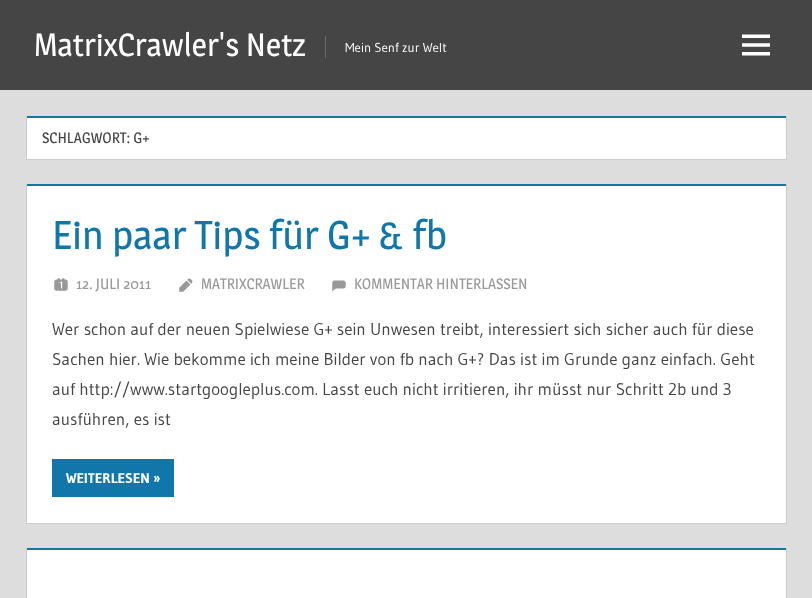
<svg xmlns="http://www.w3.org/2000/svg" width="812" height="598" viewBox="0 0 812 598">
  <style>
    .t1 { font: 32px Magra; fill: #fff; }
    .t2 { font: 13px Gudea; fill: #fff; }
    .t3 { font: 15px Magra; fill: #454545; }
    .t4 { font: 40px Magra; fill: #17a; }
    .t5 { font: 15px Magra; fill: #999; }
    .t6 { font: 17px Gudea; fill: #454545; }
    .t7 { font: bold 14px Gudea; fill: #fff; }
  </style>
  <rect width="100%" height="100%" fill="#ddd"/>
  <rect x="0" y="0" width="812" height="90" fill="#454545"/>
  <text x="34" y="56" class="t1">MatrixCrawler's Netz</text>
  <rect x="325" y="36" width="1" height="22" fill="#6a6a6a"/>
  <text x="345" y="52" class="t2">Mein Senf zur Welt</text>
  <image x="742" y="34" width="28" height="22" href="images/1.png"/>
  <rect x="26" y="116" width="761" height="44" fill="#fff"/>
  <path d="M787 116V160L786 159V116Z" fill="#ccc"/>
  <path d="M787 160H26L27 159H786Z" fill="#00000033"/>
  <path d="M26 160V116H27V159Z" fill="#00000033"/>
  <rect x="27" y="116" width="759" height="2" fill="#17a"/>
  <text x="42" y="143" class="t3">SCHLAGWORT: G+</text>
  <rect x="26" y="184" width="761" height="340" fill="#fff"/>
  <rect x="27" y="184" width="759" height="2" fill="#17a"/>
  <path d="M787 184V524L786 523V184Z" fill="#ccc"/>
  <path d="M787 524H26L27 523H786Z" fill="#00000033"/>
  <path d="M26 524V184H27V523Z" fill="#00000033"/>
  <text x="52" y="249" class="t4">Ein paar Tips für G+ &amp; fb</text>
  <image x="54" y="278" width="14" height="13" href="images/2.png"/>
  <text x="76" y="289" class="t5">12. JULI 2011</text>
  <image x="179" y="278" width="14" height="14" href="images/3.png"/>
  <text x="201" y="289" class="t5">MATRIXCRAWLER</text>
  <image x="332" y="280" width="14" height="12" href="images/4.png"/>
  <text x="354" y="289" class="t5">KOMMENTAR HINTERLASSEN</text>
  <text x="52" y="335" class="t6">Wer schon auf der neuen Spielwiese G+ sein Unwesen treibt, interessiert sich sicher auch für diese</text>
  <text x="52" y="365" class="t6">Sachen hier. Wie bekomme ich meine Bilder von fb nach G+? Das ist im Grunde ganz einfach. Geht</text>
  <text x="52" y="395" class="t6">auf http://www.startgoogleplus.com. Lasst euch nicht irritieren, ihr müsst nur Schritt 2b und 3</text>
  <text x="52" y="425" class="t6">ausführen, es ist</text>
  <rect x="52" y="459" width="122" height="38" fill="#17a"/>
  <text x="66" y="483" class="t7">WEITERLESEN »</text>
  <rect x="27" y="550" width="759" height="48" fill="#fff"/>
  <rect x="27" y="548" width="759" height="2" fill="#17a"/>
  <path d="M787 548V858L786 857V548Z" fill="#ccc"/>
  <path d="M26 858V548H27V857Z" fill="#ccc"/>
</svg>
